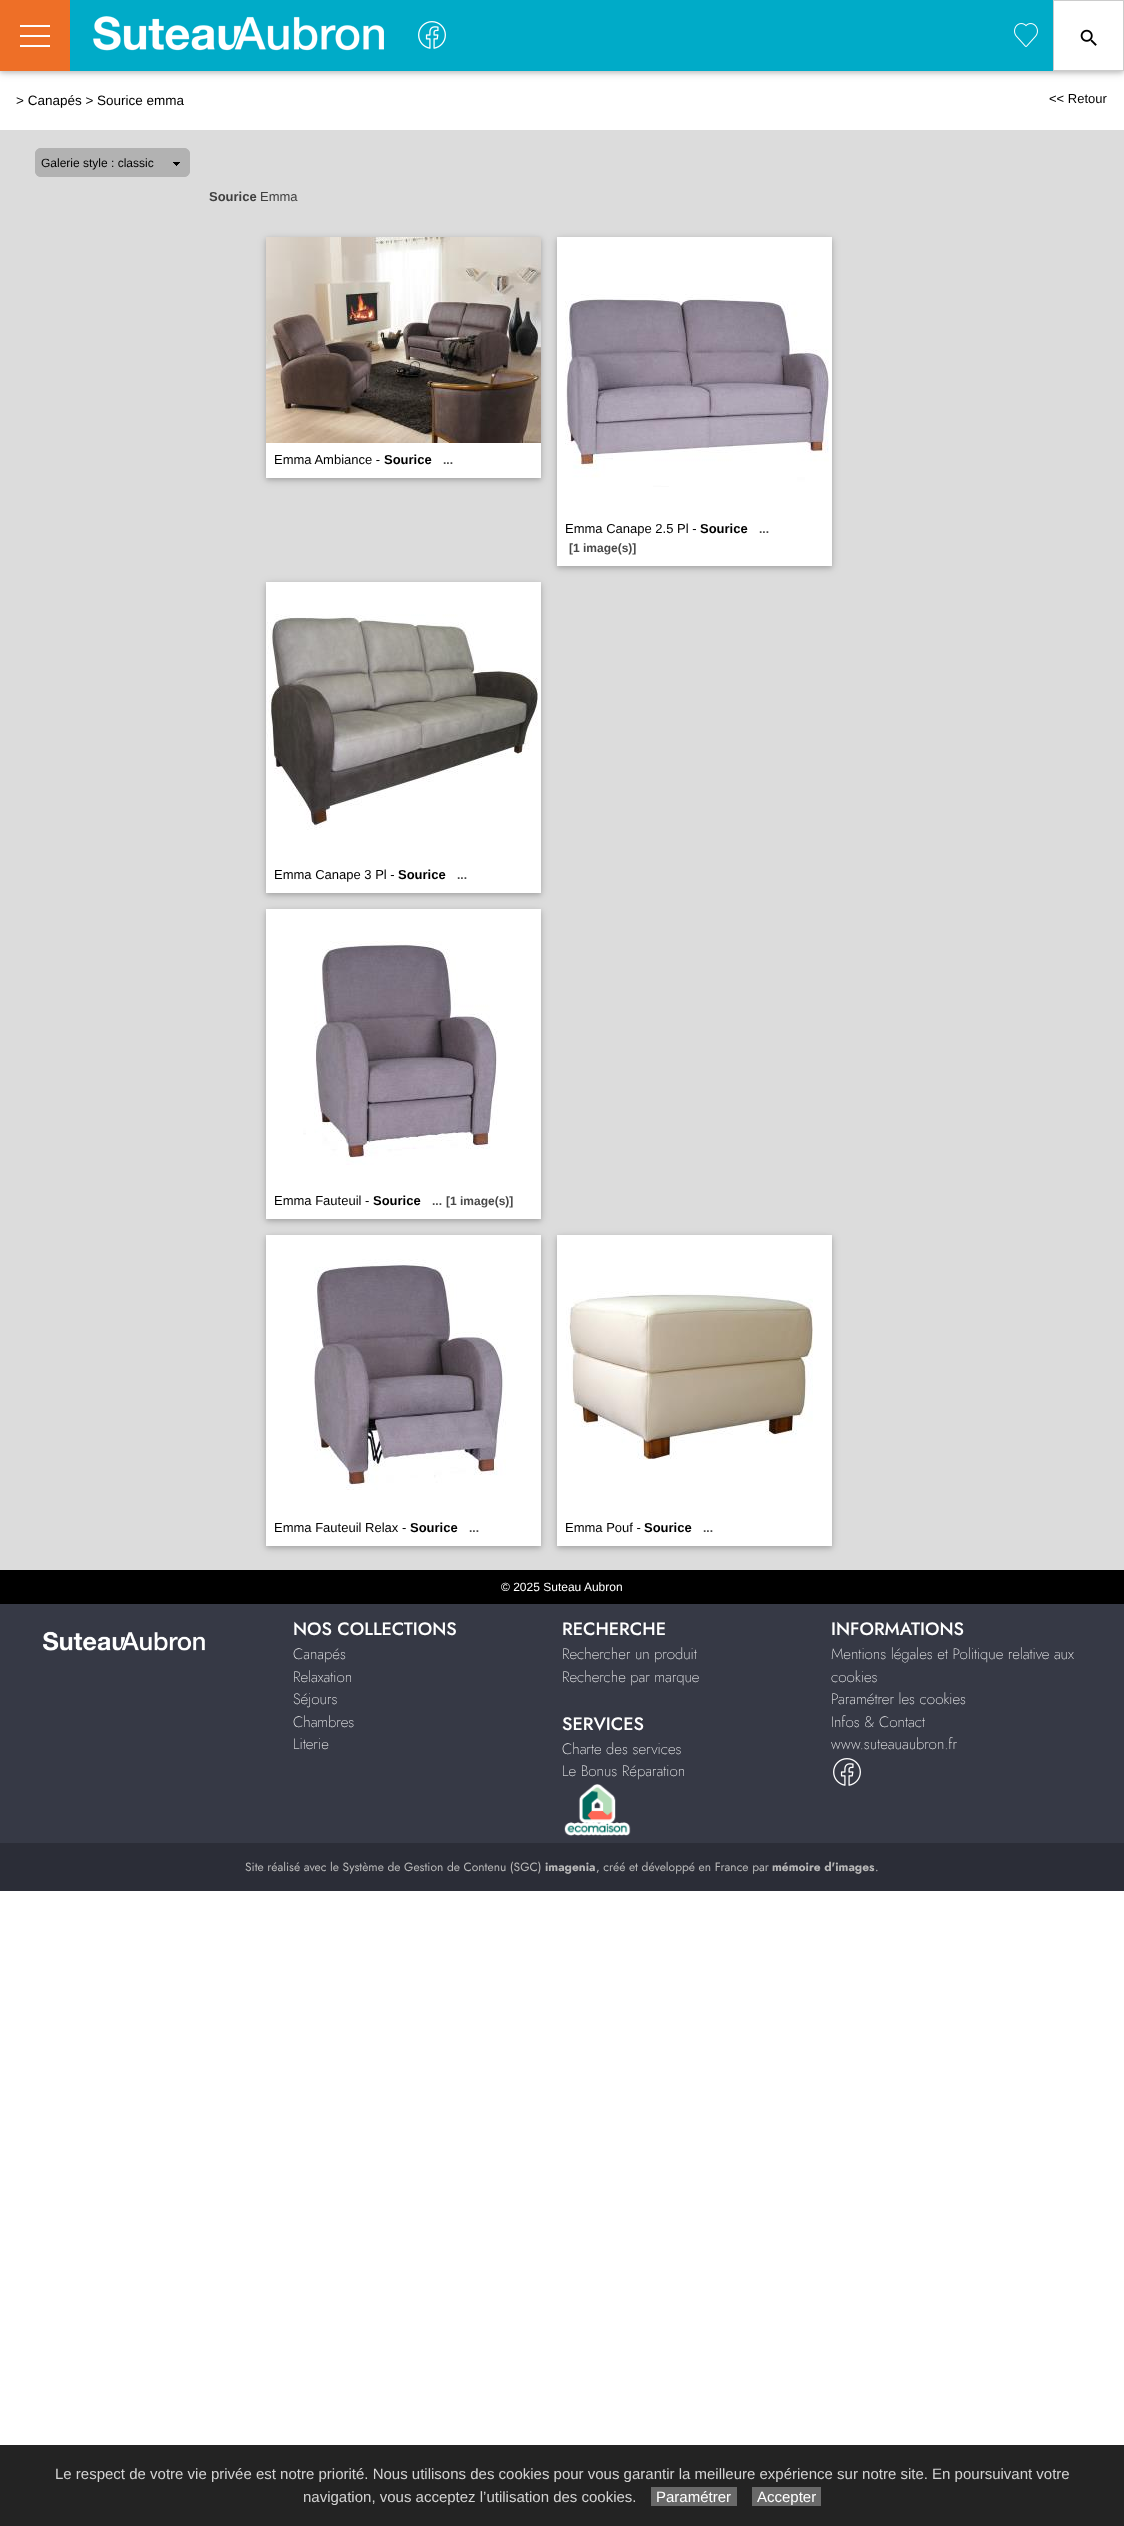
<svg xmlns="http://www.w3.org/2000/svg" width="1124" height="2526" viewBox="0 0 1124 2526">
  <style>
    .t1 { font: 13.5px Liberation Sans; fill: #000; }
    .t2 { font: 13px Liberation Sans; fill: #000; }
    .t3 { font: 12px Liberation Sans; fill: #000; }
    .t4 { font: bold 13px Liberation Sans; fill: #404040; }
    .t5 { font: 13px Liberation Sans; fill: #404040; }
    .t6 { font: bold 13px Liberation Sans; fill: #000; }
    .t7 { font: bold 12px Liberation Sans; fill: #484848; }
    .t8 { font: 12px Liberation Sans; fill: #fff; }
    .t9 { font: 500 18px Jost; fill: #fff; }
    .t10 { font: 200 15px Jost; fill: #fff; }
    .t11 { font: 12px Jost; fill: #b8b8b8; }
    .t12 { font: bold 12px Jost; fill: #b8b8b8; }
    .t13 { font: 15px Liberation Sans; fill: #d3d3d3; }
    .t14 { font: 15px Liberation Sans; fill: #fff; }
  </style>
  <rect width="100%" height="100%" fill="#fff"/>
  <rect x="0" y="2" width="1124" height="71" fill="#0000001f" filter="blur(5px)"/>
  <rect x="0" y="2" width="1124" height="71" fill="#00000029" filter="blur(2px)"/>
  <rect x="70" y="0" width="983" height="71" fill="#00abc8"/>
  <rect x="0" y="0" width="70" height="71" fill="#ee6f27"/>
  <rect x="20" y="25" width="30" height="2" fill="#fff"/>
  <rect x="20" y="35" width="30" height="2" fill="#fff"/>
  <rect x="20" y="45" width="30" height="2" fill="#fff"/>
  <image x="93" y="16" width="291" height="35" href="images/1.png"/>
  <image x="418" y="21" width="28" height="28" href="images/2.png"/>
  <image x="1014" y="23" width="24" height="24" href="images/3.png"/>
  <rect x="1053.5" y="0.5" width="70" height="70" fill="#fff" stroke="#ccc"/>
  <image x="1080" y="29" width="17" height="17" href="images/4.png"/>
  <text x="16" y="105" class="t1">&gt; Canapés &gt; Sourice emma</text>
  <text x="1049" y="103" class="t2">&lt;&lt; Retour</text>
  <rect x="0" y="130" width="1124" height="1440" fill="#dcdcdc"/>
  <rect x="35" y="148" width="155" height="29" rx="6" fill="#b2b2b2"/>
  <image x="173" y="162" width="7" height="4" href="images/5.png"/>
  <rect x="35.5" y="148.5" width="154" height="28" rx="5.5" fill="none" stroke="#b2b2b2"/>
  <text x="41" y="167" class="t3">Galerie style : classic</text>
  <text x="209" y="201" class="t4">Sourice</text>
  <text x="260" y="201" class="t5">Emma</text>
  <rect x="266" y="239" width="275" height="241" fill="#0000001f" filter="blur(5px)"/>
  <rect x="266" y="239" width="275" height="241" fill="#00000029" filter="blur(2px)"/>
  <rect x="266" y="443" width="275" height="35" fill="#fff"/>
  <image x="266" y="237" width="275" height="206" href="images/6.png"/>
  <text x="274" y="464" class="t2">Emma Ambiance -</text>
  <text x="384" y="464" class="t6">Sourice</text>
  <text x="443" y="464" class="t7">...</text>
  <rect x="557" y="239" width="275" height="329" fill="#0000001f" filter="blur(5px)"/>
  <rect x="557" y="239" width="275" height="329" fill="#00000029" filter="blur(2px)"/>
  <rect x="557" y="237" width="275" height="329" fill="#fff"/>
  <image x="565" y="294" width="264" height="193" href="images/7.png"/>
  <text x="565" y="533" class="t2">Emma Canape 2.5 Pl -</text>
  <text x="700" y="533" class="t6">Sourice</text>
  <text x="759" y="533" class="t7">...</text>
  <text x="569" y="552" class="t7">[1 image(s)]</text>
  <rect x="266" y="584" width="275" height="311" fill="#0000001f" filter="blur(5px)"/>
  <rect x="266" y="584" width="275" height="311" fill="#00000029" filter="blur(2px)"/>
  <rect x="266" y="582" width="275" height="311" fill="#fff"/>
  <image x="266" y="614" width="272" height="216" href="images/8.png"/>
  <text x="274" y="879" class="t2">Emma Canape 3 Pl -</text>
  <text x="398" y="879" class="t6">Sourice</text>
  <text x="457" y="879" class="t7">...</text>
  <rect x="266" y="911" width="275" height="310" fill="#0000001f" filter="blur(5px)"/>
  <rect x="266" y="911" width="275" height="310" fill="#00000029" filter="blur(2px)"/>
  <rect x="266" y="909" width="275" height="310" fill="#fff"/>
  <image x="303" y="941" width="195" height="224" href="images/9.png"/>
  <text x="274" y="1205" class="t2">Emma Fauteuil -</text>
  <text x="373" y="1205" class="t6">Sourice</text>
  <text x="432" y="1205" class="t7">...</text>
  <text x="446" y="1205" class="t7">[1 image(s)]</text>
  <rect x="266" y="1237" width="275" height="311" fill="#0000001f" filter="blur(5px)"/>
  <rect x="266" y="1237" width="275" height="311" fill="#00000029" filter="blur(2px)"/>
  <rect x="266" y="1235" width="275" height="311" fill="#fff"/>
  <image x="314" y="1259" width="192" height="231" href="images/10.png"/>
  <text x="274" y="1532" class="t2">Emma Fauteuil Relax -</text>
  <text x="410" y="1532" class="t6">Sourice</text>
  <text x="469" y="1532" class="t7">...</text>
  <rect x="557" y="1237" width="275" height="311" fill="#0000001f" filter="blur(5px)"/>
  <rect x="557" y="1237" width="275" height="311" fill="#00000029" filter="blur(2px)"/>
  <rect x="557" y="1235" width="275" height="311" fill="#fff"/>
  <image x="566" y="1291" width="247" height="169" href="images/11.png"/>
  <text x="565" y="1532" class="t2">Emma Pouf -</text>
  <text x="644" y="1532" class="t6">Sourice</text>
  <text x="703" y="1532" class="t7">...</text>
  <rect x="0" y="1570" width="1124" height="34" fill="#000"/>
  <text x="501" y="1591" class="t8">© 2025 Suteau Aubron</text>
  <rect x="0" y="1604" width="1124" height="239" fill="#363945"/>
  <image x="43" y="1631" width="162" height="20" href="images/12.png"/>
  <text x="293" y="1635" class="t9">NOS COLLECTIONS</text>
  <text x="293" y="1659" class="t10">Canapés</text>
  <text x="293" y="1682" class="t10">Relaxation</text>
  <text x="293" y="1704" class="t10">Séjours</text>
  <text x="293" y="1727" class="t10">Chambres</text>
  <text x="293" y="1749" class="t10">Literie</text>
  <text x="562" y="1635" class="t9">RECHERCHE</text>
  <text x="562" y="1659" class="t10">Rechercher un produit</text>
  <text x="562" y="1682" class="t10">Recherche par marque</text>
  <text x="562" y="1730" class="t9">SERVICES</text>
  <text x="562" y="1754" class="t10">Charte des services</text>
  <text x="562" y="1776" class="t10">Le Bonus Réparation</text>
  <image x="564" y="1784" width="67" height="52" href="images/13.png"/>
  <text x="831" y="1635" class="t9">INFORMATIONS</text>
  <text x="831" y="1659" class="t10">Mentions légales et Politique relative aux</text>
  <text x="831" y="1682" class="t10">cookies</text>
  <text x="831" y="1704" class="t10">Paramétrer les cookies</text>
  <text x="831" y="1727" class="t10">Infos &amp; Contact</text>
  <text x="831" y="1749" class="t10">www.suteauaubron.fr</text>
  <image x="833" y="1758" width="28" height="28" href="images/14.png"/>
  <rect x="0" y="1843" width="1124" height="48" fill="#2b2d37"/>
  <text x="245" y="1871" class="t11">Site réalisé avec le Système de Gestion de Contenu (SGC)</text>
  <text x="545" y="1871" class="t12">imagenia</text>
  <text x="596" y="1871" class="t11">, créé et développé en France par</text>
  <text x="772" y="1871" class="t12">mémoire d'images</text>
  <text x="875" y="1871" class="t11">.</text>
  <rect x="0" y="2445" width="1124" height="81" fill="#232323"/>
  <text x="55" y="2479" class="t13">Le respect de votre vie privée est notre priorité. Nous utilisons des cookies pour vous garantir la meilleure expérience sur notre site. En poursuivant votre</text>
  <text x="303" y="2502" class="t13">navigation, vous acceptez l’utilisation des cookies.</text>
  <rect x="651" y="2487" width="86" height="19" fill="#696969"/>
  <text x="656" y="2502" class="t14">Paramétrer</text>
  <rect x="752" y="2487" width="69" height="19" fill="#696969"/>
  <text x="757" y="2502" class="t14">Accepter</text>
</svg>
